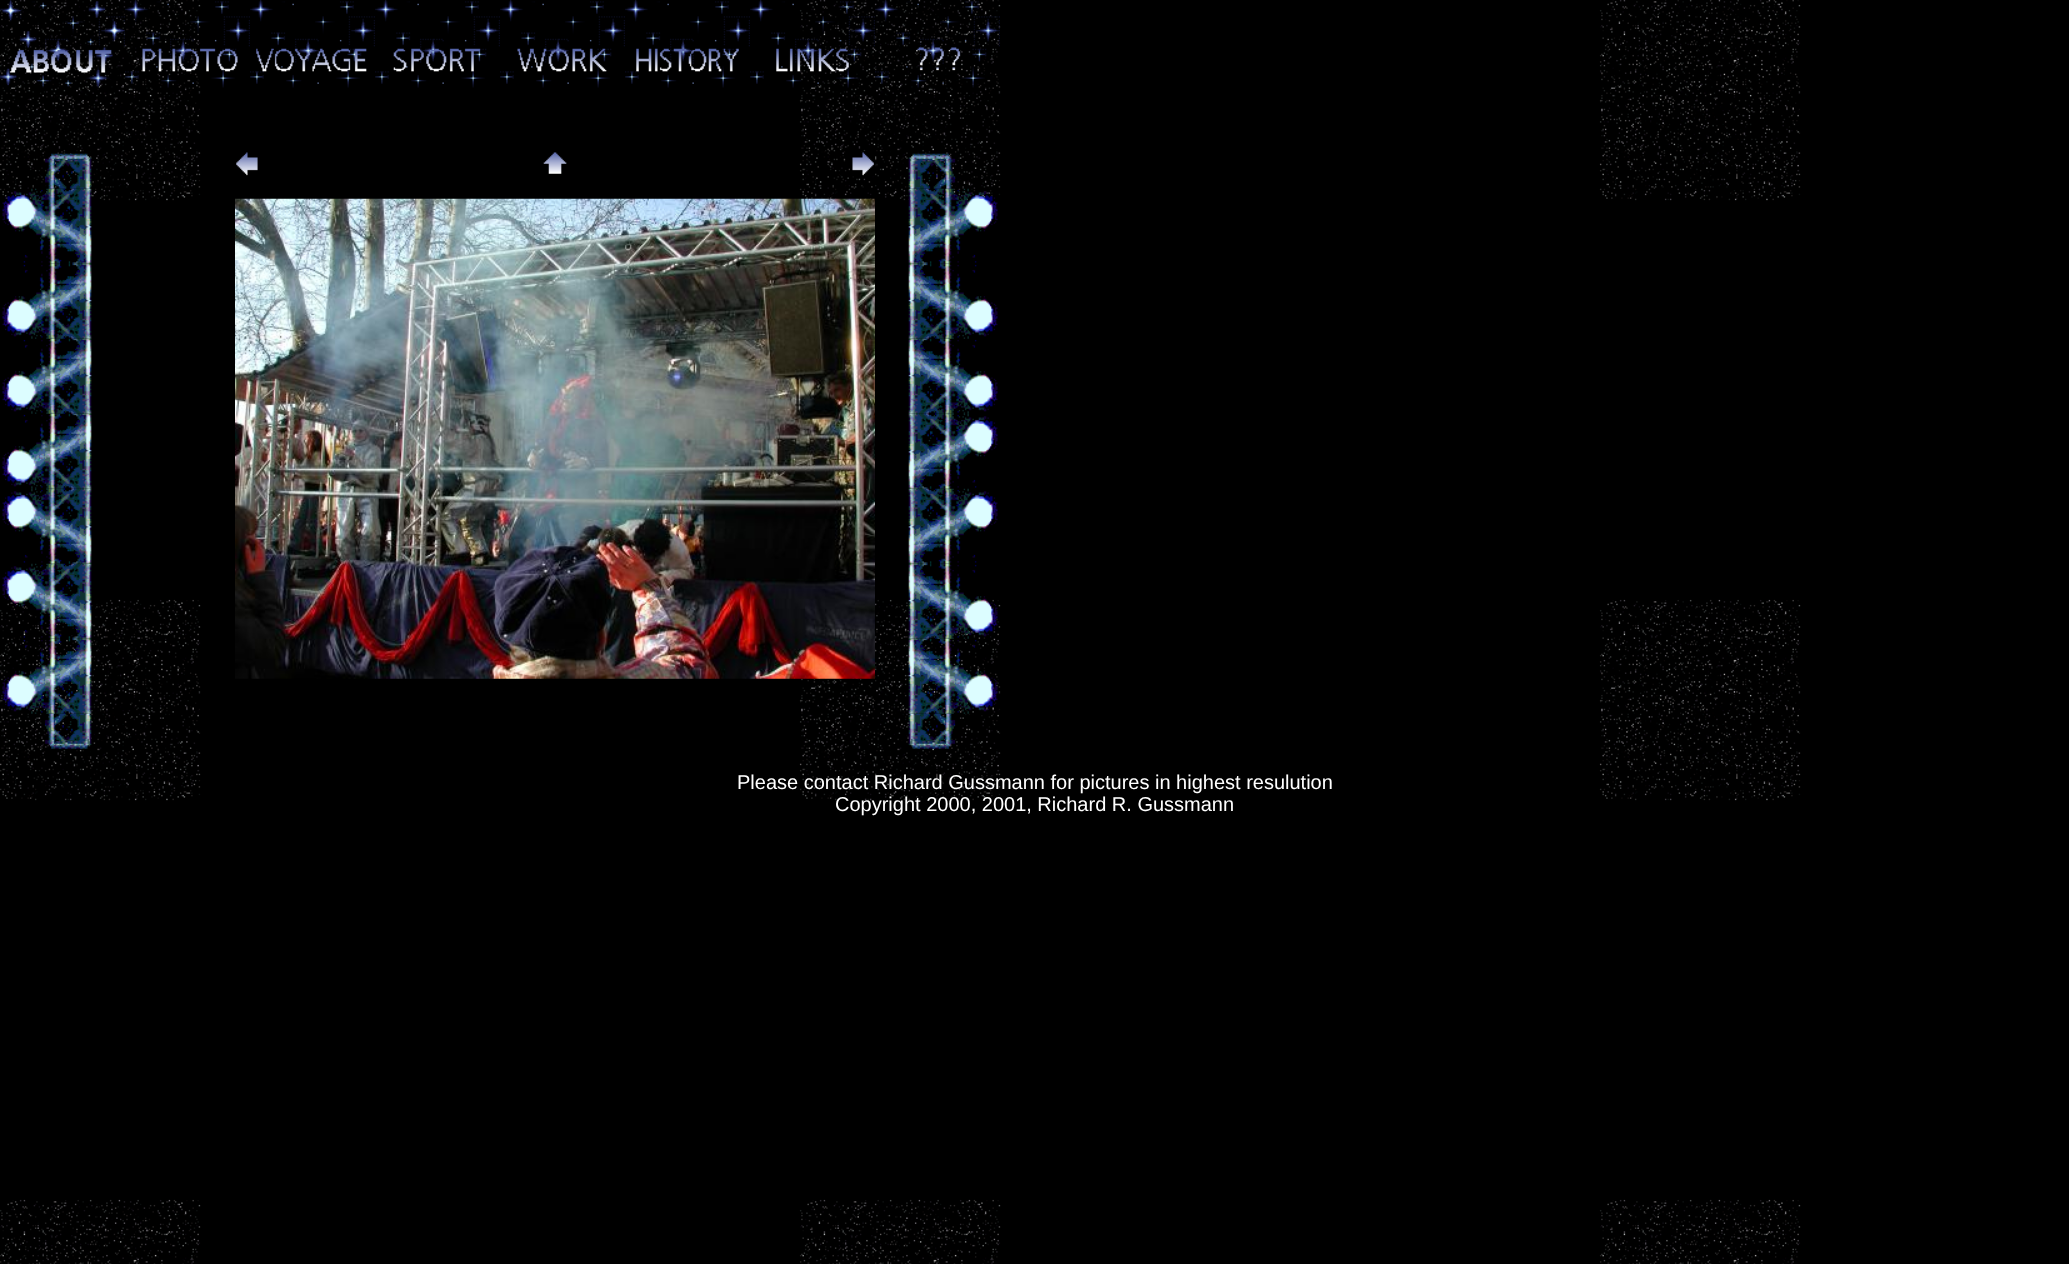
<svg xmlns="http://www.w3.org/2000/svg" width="2069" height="1264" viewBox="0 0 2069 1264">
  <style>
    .t1 { font: 20px Liberation Sans; fill: #fff; }
  </style>
  <rect width="100%" height="100%" fill="#000"/>
  <image x="0" y="0" width="1801" height="1264" href="images/1.png"/>
  <image x="0" y="0" width="125" height="88" href="images/2.png"/>
  <image x="125" y="0" width="125" height="88" href="images/3.png"/>
  <image x="250" y="0" width="125" height="88" href="images/4.png"/>
  <image x="375" y="0" width="125" height="88" href="images/5.png"/>
  <image x="500" y="0" width="125" height="88" href="images/6.png"/>
  <image x="625" y="0" width="125" height="88" href="images/7.png"/>
  <image x="750" y="0" width="125" height="88" href="images/8.png"/>
  <image x="875" y="0" width="125" height="88" href="images/9.png"/>
  <image x="44" y="153" width="48" height="36" href="images/10.png"/>
  <image x="2" y="188" width="90" height="76" href="images/11.png"/>
  <image x="2" y="263" width="90" height="76" href="images/12.png"/>
  <image x="2" y="338" width="90" height="76" href="images/13.png"/>
  <image x="2" y="413" width="90" height="76" href="images/13.png"/>
  <image x="2" y="488" width="90" height="76" href="images/14.png"/>
  <image x="2" y="563" width="90" height="76" href="images/15.png"/>
  <image x="2" y="638" width="90" height="76" href="images/16.png"/>
  <image x="44" y="713" width="48" height="36" href="images/17.png"/>
  <image x="236" y="152" width="22" height="24" href="images/18.png"/>
  <image x="543" y="152" width="24" height="22" href="images/19.png"/>
  <image x="850" y="151" width="25" height="25" href="images/20.png"/>
  <image x="235" y="198" width="640" height="481" href="images/21.png"/>
  <image x="908" y="153" width="48" height="36" href="images/22.png"/>
  <image x="908" y="188" width="90" height="76" href="images/23.png"/>
  <image x="908" y="263" width="90" height="76" href="images/24.png"/>
  <image x="908" y="338" width="90" height="76" href="images/25.png"/>
  <image x="908" y="413" width="90" height="76" href="images/26.png"/>
  <image x="908" y="488" width="90" height="76" href="images/27.png"/>
  <image x="908" y="563" width="90" height="76" href="images/28.png"/>
  <image x="908" y="638" width="90" height="76" href="images/29.png"/>
  <image x="908" y="713" width="48" height="36" href="images/30.png"/>
  <text x="737" y="789" class="t1">Please contact Richard Gussmann for pictures in highest resulution</text>
  <text x="835" y="811" class="t1">Copyright 2000, 2001, Richard R. Gussmann</text>
</svg>
